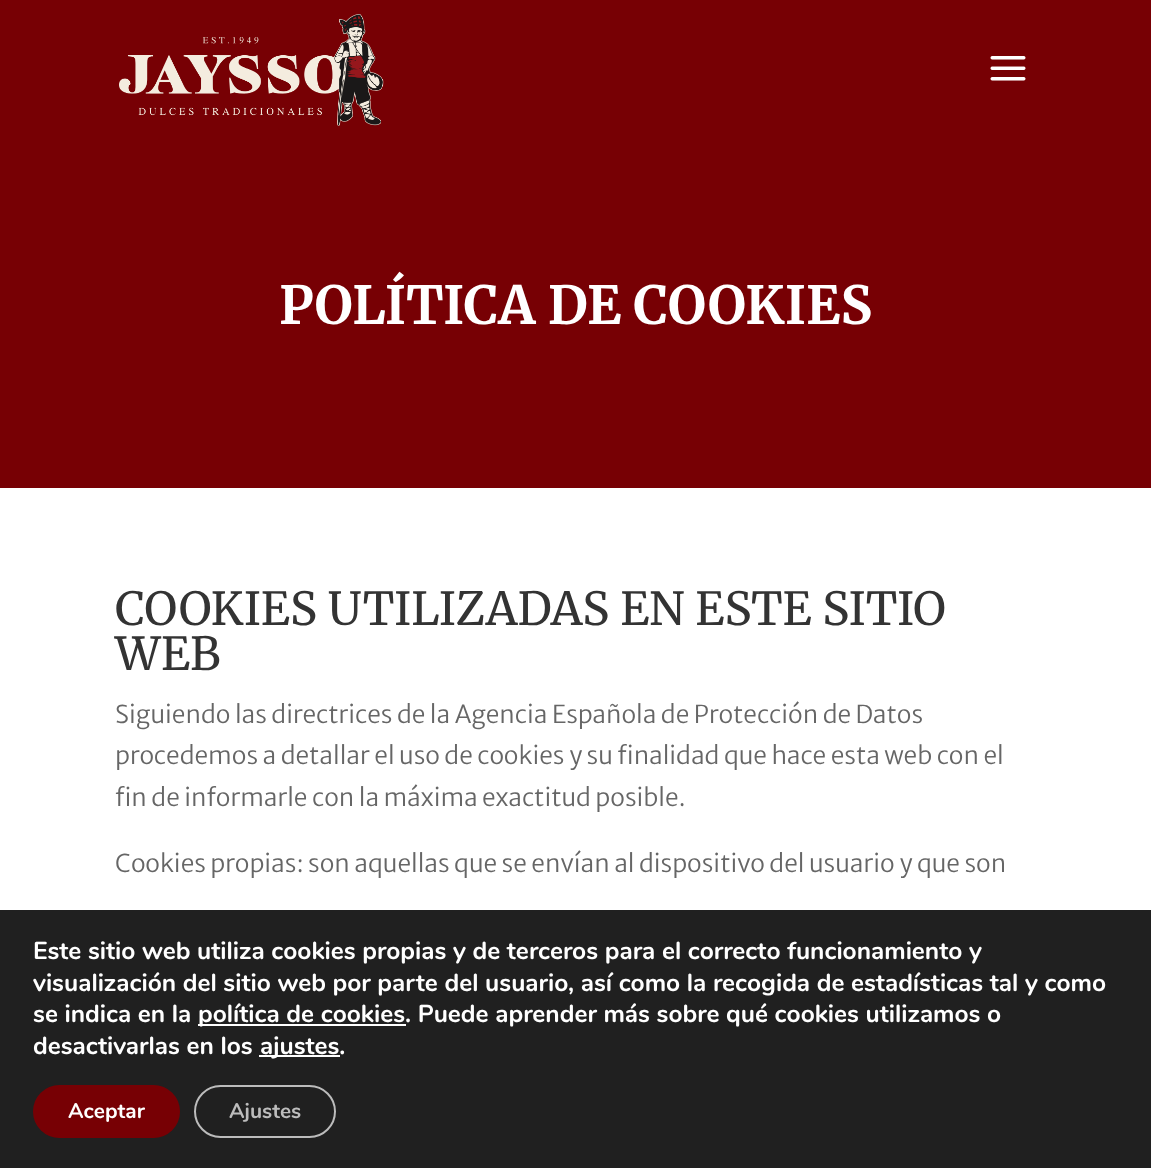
<svg xmlns="http://www.w3.org/2000/svg" width="1151" height="1168" viewBox="0 0 1151 1168">
  <style>
    .t1 { font: 300 52.5px Merriweather; fill: #fff; }
    .t2 { font: 300 45.5px 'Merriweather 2'; fill: #333; }
    .t3 { font: 300 24.5px Merriweather Sans; fill: #666; }
    .t4 { font: bold 24.5px Nunito; fill: #fff; }
    .t5 { font: bold 21px Nunito; fill: #fff; }
    .t6 { font: bold 21px Nunito; fill: #bcbcbc; }
  </style>
  <rect width="100%" height="100%" fill="#fff"/>
  <rect x="0" y="0" width="1151" height="488" fill="#770004"/>
  <image x="119" y="14" width="265" height="112" href="images/1.png"/>
  <image x="990" y="56" width="36" height="25" href="images/2.png"/>
  <text x="279" y="324" class="t1">POLÍTICA DE COOKIES</text>
  <text x="115" y="625" class="t2">COOKIES UTILIZADAS EN ESTE SITIO</text>
  <text x="115" y="670" class="t2">WEB</text>
  <text x="115" y="723" class="t3">Siguiendo las directrices de la Agencia Española de Protección de Datos</text>
  <text x="115" y="764" class="t3">procedemos a detallar el uso de cookies y su finalidad que hace esta web con el</text>
  <text x="115" y="806" class="t3">fin de informarle con la máxima exactitud posible.</text>
  <text x="115" y="872" class="t3">Cookies propias: son aquellas que se envían al dispositivo del usuario y que son</text>
  <rect x="0" y="910" width="1151" height="258" fill="#202020"/>
  <text x="33" y="959" class="t4">Este sitio web utiliza cookies propias y de terceros para el correcto funcionamiento y</text>
  <text x="33" y="991" class="t4">visualización del sitio web por parte del usuario, así como la recogida de estadísticas tal y como</text>
  <text x="33" y="1022" class="t4">se indica en la</text>
  <rect x="198" y="1024" width="208" height="2" fill="#fff"/>
  <text x="198" y="1022" class="t4">política de cookies. Puede aprender más sobre qué cookies utilizamos o</text>
  <text x="33" y="1054" class="t4">desactivarlas en los</text>
  <rect x="259" y="1055" width="81" height="2" fill="#fff"/>
  <text x="260" y="1054" class="t4">ajustes.</text>
  <rect x="33" y="1085" width="147" height="53" rx="26.5" fill="#770004"/>
  <text x="68" y="1118" class="t5">Aceptar</text>
  <rect x="195" y="1086" width="140" height="51" rx="25.5" fill="none" stroke="#bcbcbc" stroke-width="2"/>
  <text x="229" y="1118" class="t6">Ajustes</text>
</svg>
